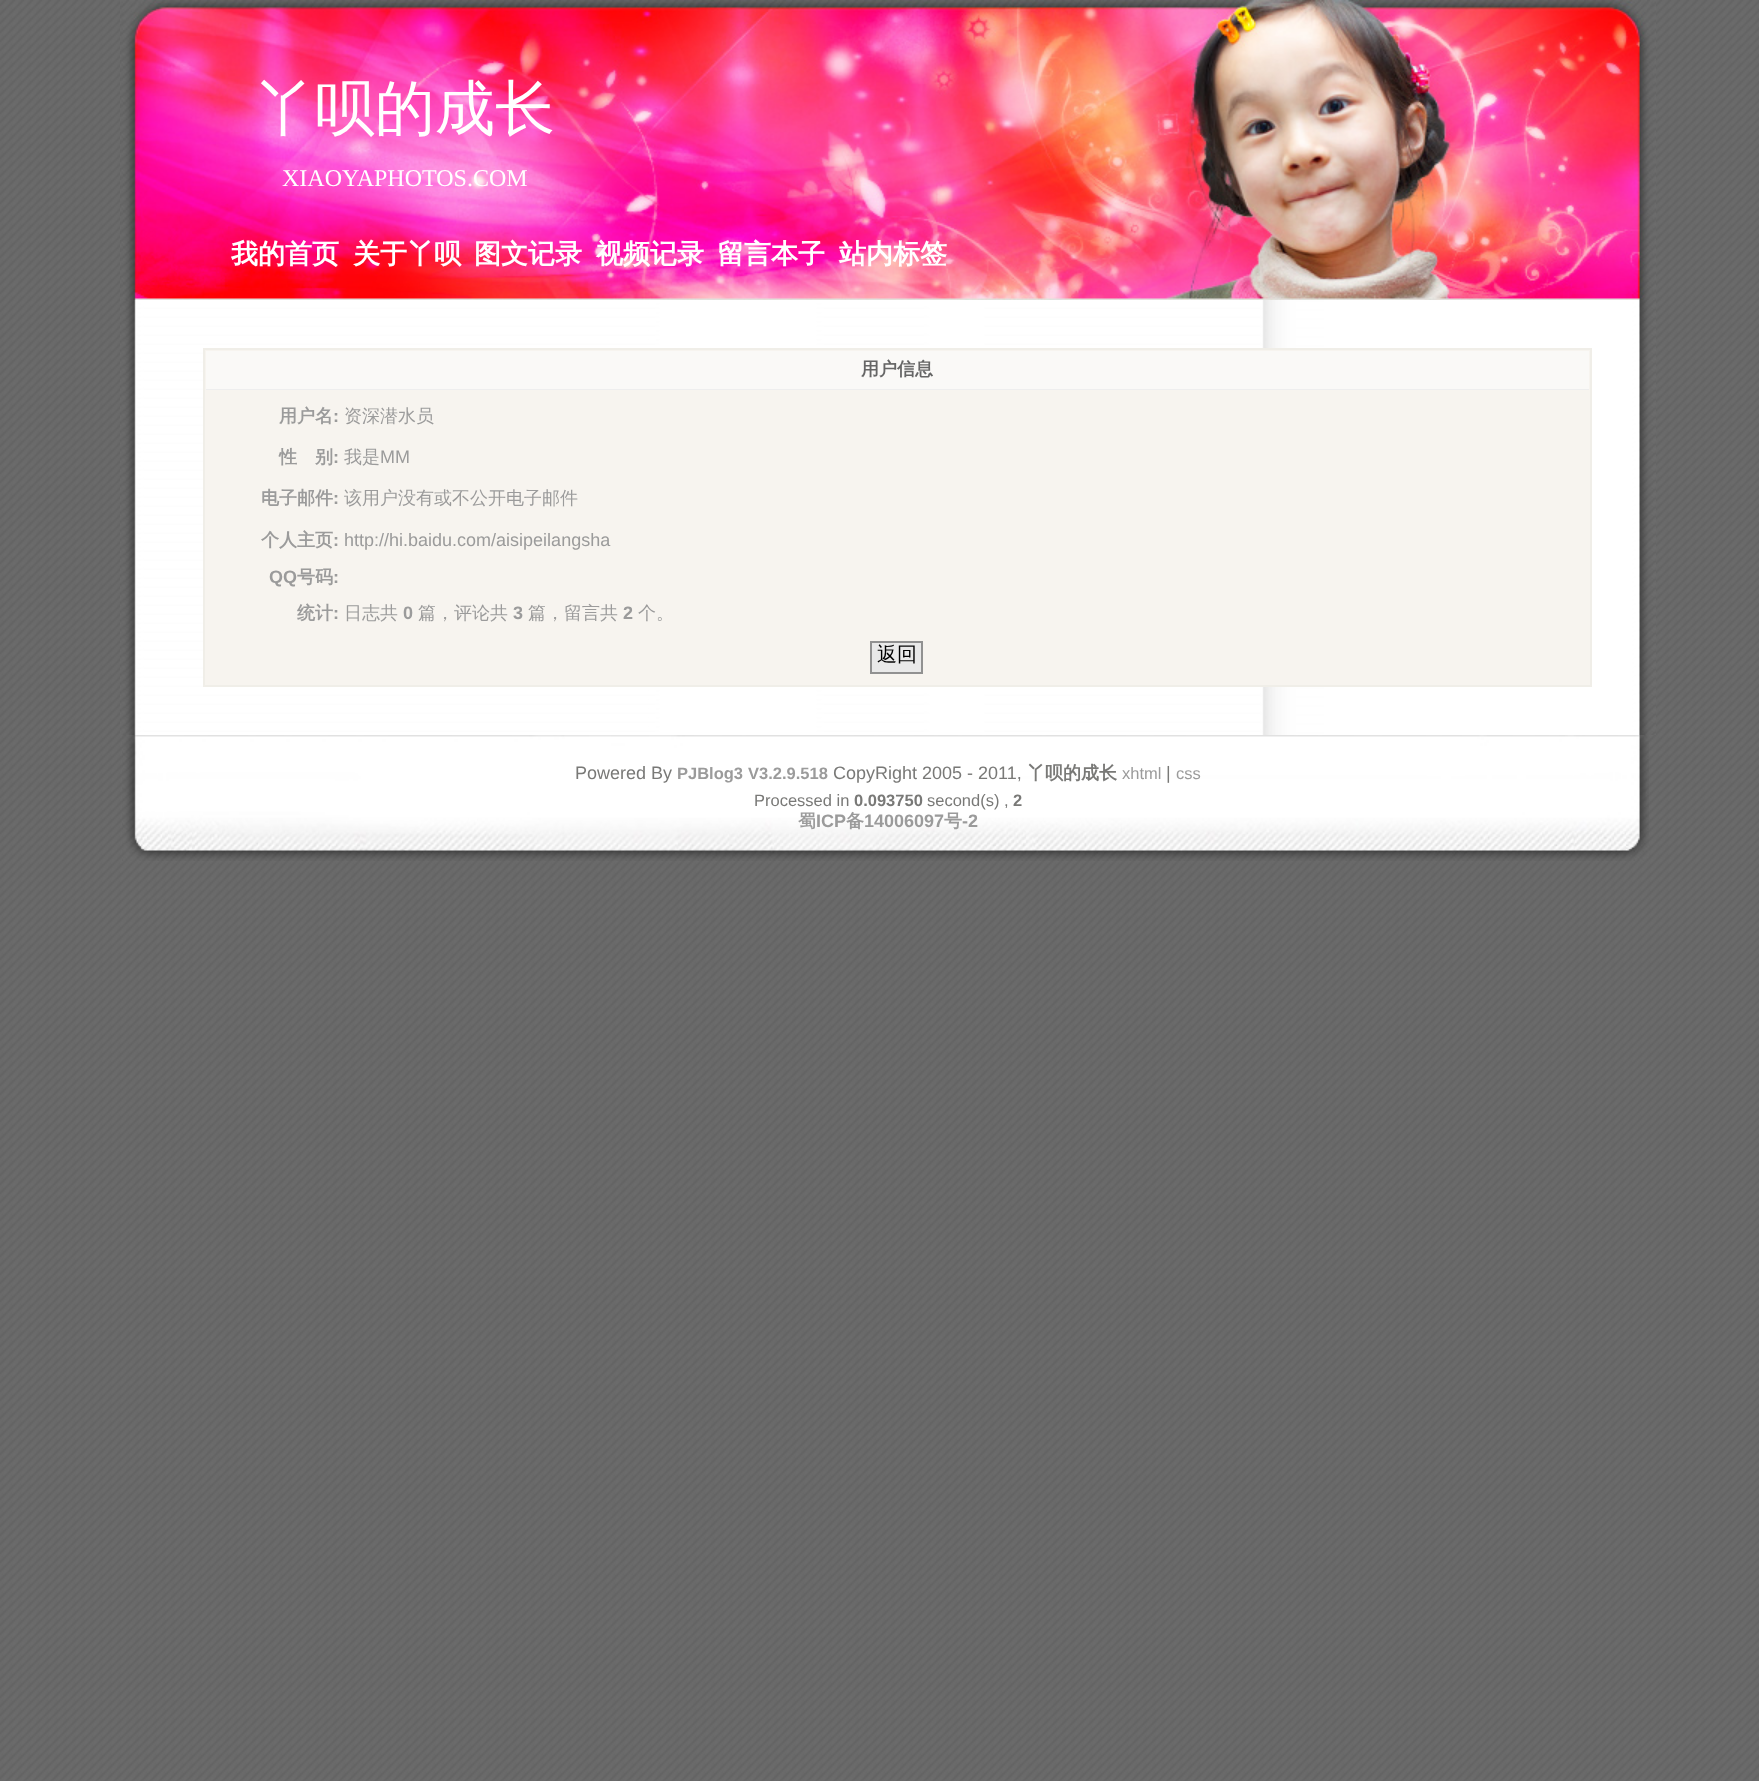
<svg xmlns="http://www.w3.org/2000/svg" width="1759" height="1781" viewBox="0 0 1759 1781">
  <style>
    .t1 { font: 500 60px WenQuanYi Zen Hei; fill: #fff; }
    .t2 { font: 24px Liberation Serif; fill: #fff; }
    .t3 { font: bold 27px WenQuanYi Zen Hei; fill: #fff; }
    .t4 { font: bold 18px WenQuanYi Zen Hei; fill: #666; }
    .t5 { font: bold 18px WenQuanYi Zen Hei; fill: #9b9b9b; }
    .t6 { font: bold 18px Liberation Sans; fill: #9b9b9b; }
    .t7 { font: 500 18px WenQuanYi Zen Hei; fill: #9b9b9b; }
    .t8 { font: 18px Liberation Sans; fill: #9b9b9b; }
    .t9 { font: 500 20px WenQuanYi Zen Hei; fill: #000; }
    .t10 { font: 18px Liberation Sans; fill: #797977; }
    .t11 { font: bold 16.5px Liberation Sans; fill: #9b9b9b; }
    .t12 { font: bold 18px WenQuanYi Zen Hei; fill: #797977; }
    .t13 { font: 16.5px Liberation Sans; fill: #9b9b9b; }
    .t14 { font: 16.5px Liberation Sans; fill: #797977; }
    .t15 { font: bold 16.5px Liberation Sans; fill: #797977; }
  </style>
  <rect width="100%" height="100%" fill="#fff"/>
  <image x="0" y="0" width="1759" height="1781" href="images/1.png"/>
  <image x="120" y="0" width="1536" height="300" href="images/2.png"/>
  <text x="255" y="129" class="t1">丫呗的成长</text>
  <text x="282" y="186" class="t2">XIAOYAPHOTOS.COM</text>
  <text x="231" y="263" class="t3">我的首页</text>
  <text x="353" y="263" class="t3">关于丫呗</text>
  <text x="474" y="263" class="t3">图文记录</text>
  <text x="596" y="263" class="t3">视频记录</text>
  <text x="717" y="263" class="t3">留言本子</text>
  <text x="839" y="263" class="t3">站内标签</text>
  <image x="120" y="300" width="1536" height="435" href="images/3.png"/>
  <rect x="204" y="349" width="1387" height="337" fill="#f7f4ef" stroke="#f0eee8" stroke-width="2"/>
  <rect x="206" y="351" width="1383" height="38" fill="#faf9f7"/>
  <rect x="206" y="389" width="1383" height="1" fill="#eee"/>
  <text x="861" y="375" class="t4">用户信息</text>
  <text x="279" y="422" class="t5">用户名</text>
  <text x="333" y="422" class="t6">:</text>
  <text x="344" y="422" class="t7">资深潜水员</text>
  <text x="279" y="463" class="t5">性　别</text>
  <text x="333" y="463" class="t6">:</text>
  <text x="344" y="463" class="t7">我是</text>
  <text x="380" y="463" class="t8">MM</text>
  <text x="261" y="504" class="t5">电子邮件</text>
  <text x="333" y="504" class="t6">:</text>
  <text x="344" y="504" class="t7">该用户没有或不公开电子邮件</text>
  <text x="261" y="546" class="t5">个人主页</text>
  <text x="333" y="546" class="t6">:</text>
  <text x="344" y="546" class="t8">http://hi.baidu.com/aisipeilangsha</text>
  <text x="269" y="583" class="t6">QQ</text>
  <text x="297" y="583" class="t5">号码</text>
  <text x="333" y="583" class="t6">:</text>
  <text x="297" y="619" class="t5">统计</text>
  <text x="333" y="619" class="t6">:</text>
  <text x="344" y="619" class="t7">日志共</text>
  <text x="403" y="619" class="t6">0</text>
  <text x="418" y="619" class="t7">篇，评论共</text>
  <text x="513" y="619" class="t6">3</text>
  <text x="528" y="619" class="t7">篇，留言共</text>
  <text x="623" y="619" class="t6">2</text>
  <text x="638" y="619" class="t7">个。</text>
  <rect x="871" y="642" width="51" height="31" fill="#e9e9e9" stroke="#919191" stroke-width="2"/>
  <text x="877" y="661" class="t9">返回</text>
  <image x="122" y="735" width="1527" height="126" href="images/4.png"/>
  <text x="575" y="779" class="t10">Powered By</text>
  <text x="677" y="779" class="t11">PJBlog3</text>
  <text x="748" y="779" class="t11">V3.2.9.518</text>
  <text x="833" y="779" class="t10">CopyRight 2005 - 2011,</text>
  <text x="1027" y="779" class="t12">丫呗的成长</text>
  <text x="1122" y="779" class="t13">xhtml</text>
  <text x="1166" y="779" class="t10">|</text>
  <text x="1176" y="779" class="t13">css</text>
  <text x="754" y="806" class="t14">Processed in</text>
  <text x="854" y="806" class="t15">0.093750</text>
  <text x="927" y="806" class="t14">second(s) ,</text>
  <text x="1013" y="806" class="t15">2</text>
  <text x="798" y="827" class="t5">蜀</text>
  <text x="816" y="827" class="t6">ICP</text>
  <text x="846" y="827" class="t5">备</text>
  <text x="864" y="827" class="t6">14006097</text>
  <text x="944" y="827" class="t5">号</text>
  <text x="962" y="827" class="t6">-2</text>
</svg>
